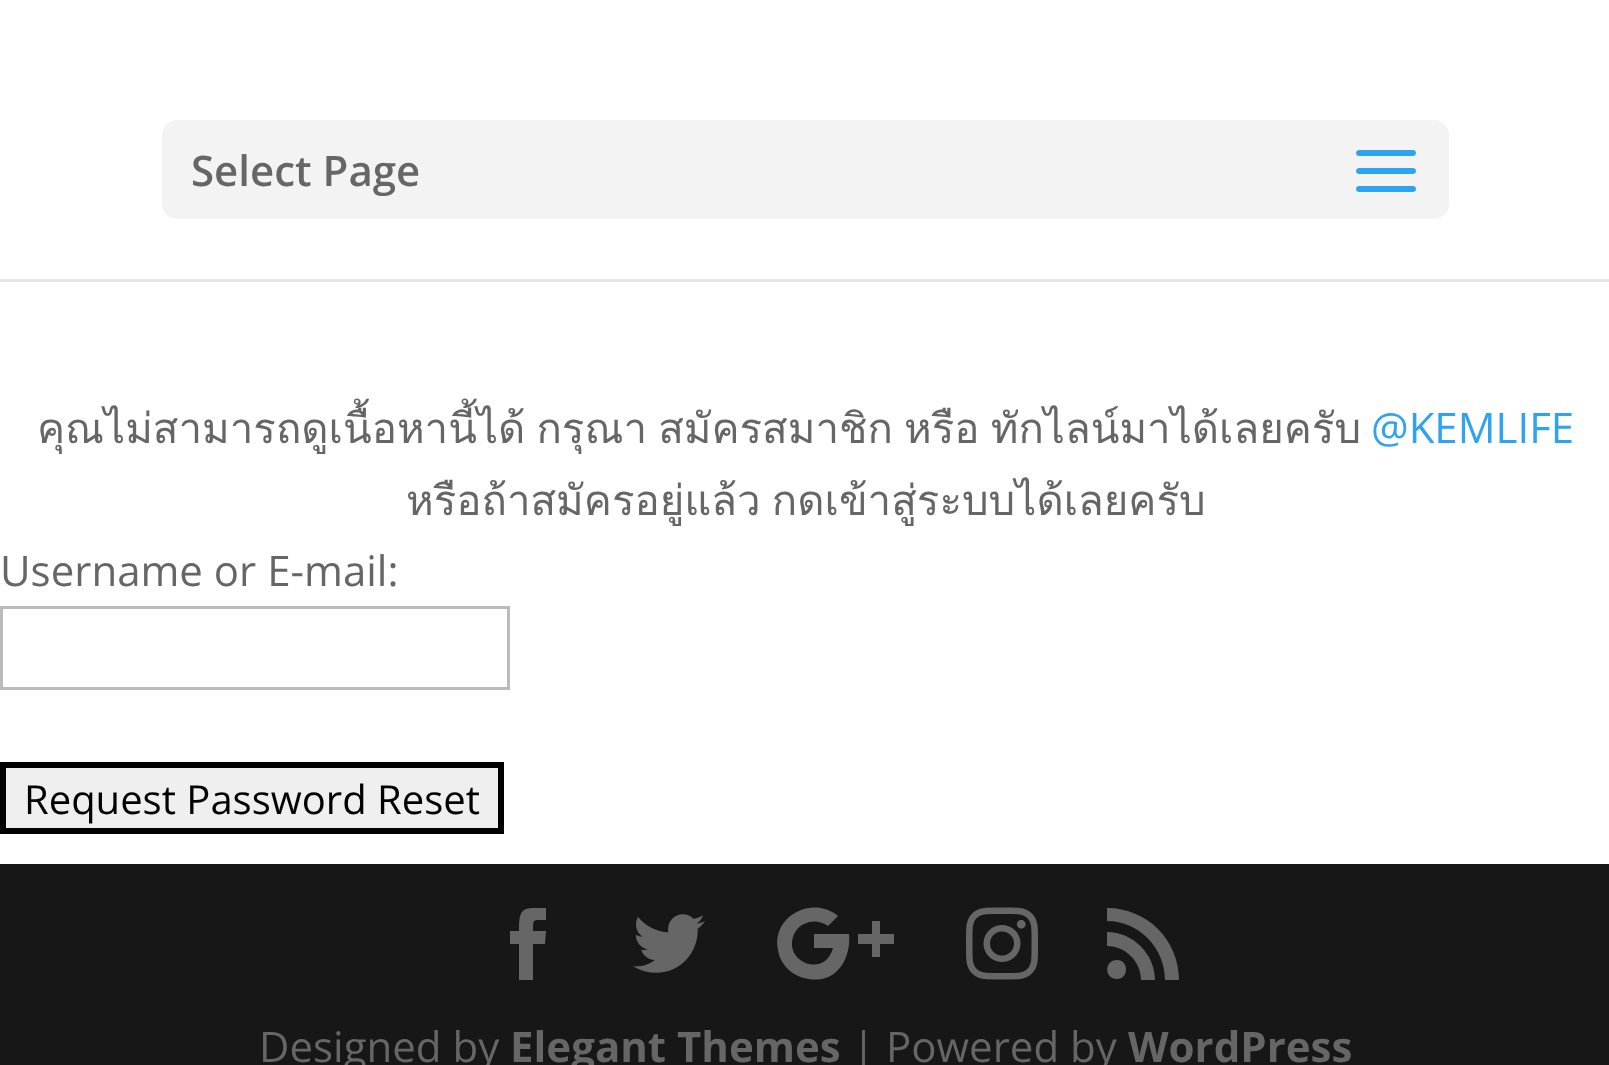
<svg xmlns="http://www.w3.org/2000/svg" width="1609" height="1065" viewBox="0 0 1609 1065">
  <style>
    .t1 { font: 600 42px Open Sans; fill: #666; }
    .t2 { font: 42px Loma; fill: #666; }
    .t3 { font: 42px Open Sans; fill: #2ea3f2; }
    .t4 { font: 42px Open Sans; fill: #666; }
    .t5 { font: 40px Open Sans; fill: #000; }
    .t6 { font: bold 42px Open Sans; fill: #666; }
  </style>
  <rect width="100%" height="100%" fill="#fff"/>
  <rect x="0" y="279" width="1609" height="3" fill="#e6e6e6"/>
  <rect x="162" y="120" width="1287" height="99" rx="15" fill="#f3f3f3"/>
  <text x="191" y="186" class="t1">Select Page</text>
  <image x="1356" y="150" width="60" height="42" href="images/1.png"/>
  <text x="37" y="443" word-spacing="-3" class="t2">คุณไม่สามารถดูเนื้อหานี้ได้ กรุณา สมัครสมาชิก หรือ ทักไลน์มาได้เลยครับ</text>
  <text x="1371" y="443" class="t3">@KEMLIFE</text>
  <text x="406" y="515" word-spacing="-3" class="t2">หรือถ้าสมัครอยู่แล้ว กดเข้าสู่ระบบได้เลยครับ</text>
  <text x="0" y="586" class="t4">Username or E-mail:</text>
  <rect x="1.5" y="607.5" width="507" height="81" fill="none" stroke="#bbb" stroke-width="3"/>
  <rect x="3" y="765" width="498" height="66" fill="#efefef" stroke="#000" stroke-width="6"/>
  <text x="24" y="814" class="t5">Request Password Reset</text>
  <rect x="0" y="864" width="1609" height="201" fill="#171717"/>
  <path d="M519 980H533V944H545L546 931H533C533 918 533 920 546 920V908C523 908 519 906 519 931H510V944H519Z" fill="#666"/>
  <image x="633" y="914" width="72" height="59" href="images/2.png"/>
  <path d="M814 934V948H833C825 978 785 963 793 937C795 931 799 926 804 924C812 920 821 921 828 926L838 916C813 895 771 916 778 950C779 958 784 966 790 971C799 978 811 981 822 979C842 975 851 953 849 934ZM894 934H880V921H872V934H858V944H872V957H880V944H894Z" fill="#666"/>
  <image x="966" y="907" width="72" height="73" href="images/3.png"/>
  <path d="M1107 908V921C1139 921 1165 948 1165 980H1179C1179 940 1147 908 1107 908ZM1141 980H1155C1155 954 1133 932 1107 932V946C1125 946 1141 961 1141 980ZM1117 979C1129 979 1129 960 1117 960C1104 960 1104 979 1117 979Z" fill="#666"/>
  <text x="259" y="1062" class="t4">Designed by</text>
  <text x="510" y="1062" class="t6">Elegant Themes</text>
  <text x="852" y="1062" class="t4">| Powered by</text>
  <text x="1128" y="1062" class="t6">WordPress</text>
</svg>
